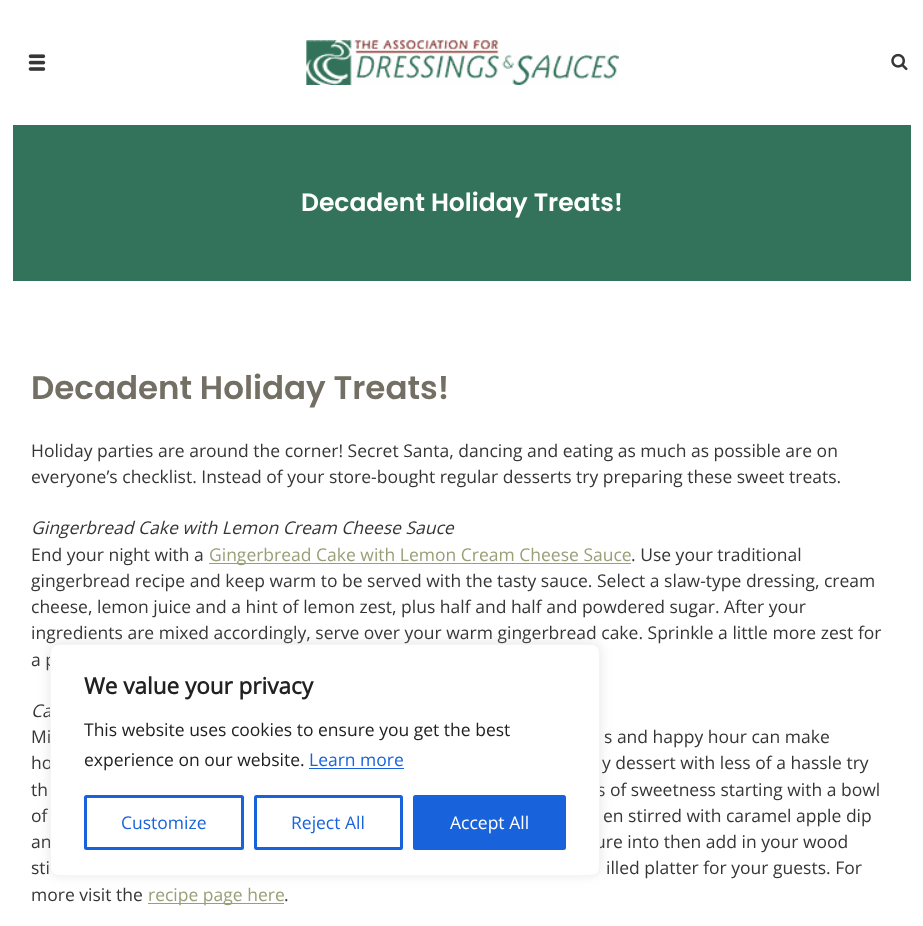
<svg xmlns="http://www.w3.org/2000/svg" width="923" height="926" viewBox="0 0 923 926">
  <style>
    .t1 { font: 600 25px Poppins; fill: #fff; }
    .t2 { font: 600 32.5px Poppins; fill: #736f64; }
    .t3 { font: 17.5px Open Sans; fill: #363636; }
    .t4 { font: italic 17.5px Open Sans; fill: #363636; }
    .t5 { font: 17.5px Open Sans; fill: #98a077; }
    .t6 { font: bold 22.5px Open Sans; fill: #212121; }
    .t7 { font: 17.5px Open Sans; fill: #212121; }
    .t8 { font: 17.5px Open Sans; fill: #1863dc; }
    .t9 { font: 17.5px Open Sans; fill: #fff; }
  </style>
  <rect width="100%" height="100%" fill="#fff"/>
  <image x="28" y="54" width="18" height="17" href="images/1.png"/>
  <image x="306" y="40" width="313" height="45" href="images/2.png"/>
  <image x="891" y="53" width="17" height="18" href="images/3.png"/>
  <rect x="13" y="125" width="898" height="156" fill="#33735b"/>
  <text x="301" y="211" class="t1">Decadent Holiday Treats!</text>
  <text x="31" y="399" class="t2">Decadent Holiday Treats!</text>
  <text x="31" y="457" class="t3">Holiday parties are around the corner! Secret Santa, dancing and eating as much as possible are on</text>
  <text x="31" y="483" class="t3">everyone’s checklist. Instead of your store-bought regular desserts try preparing these sweet treats.</text>
  <text x="31" y="534" class="t4">Gingerbread Cake with Lemon Cream Cheese Sauce</text>
  <text x="31" y="561" class="t3">End your night with a</text>
  <rect x="209" y="563" width="422" height="1" fill="#98a077"/>
  <text x="209" y="561" class="t5">Gingerbread Cake with Lemon Cream Cheese Sauce</text>
  <text x="631" y="561" class="t3">. Use your traditional</text>
  <text x="31" y="587" class="t3">gingerbread recipe and keep warm to be served with the tasty sauce. Select a slaw-type dressing, cream</text>
  <text x="31" y="613" class="t3">cheese, lemon juice and a hint of lemon zest, plus half and half and powdered sugar. After your</text>
  <text x="31" y="639" class="t3">ingredients are mixed accordingly, serve over your warm gingerbread cake. Sprinkle a little more zest for</text>
  <text x="31" y="666" class="t3">a p</text>
  <text x="31" y="717" class="t4">Ca</text>
  <text x="31" y="743" class="t3">Mi</text>
  <text x="604" y="743" class="t3">s and happy hour can make</text>
  <text x="31" y="769" class="t3">ho</text>
  <text x="602" y="769" class="t3">y dessert with less of a hassle try</text>
  <text x="31" y="796" class="t3">th</text>
  <text x="597" y="796" class="t3">s of sweetness starting with a bowl</text>
  <text x="31" y="822" class="t3">of</text>
  <text x="603" y="822" class="t3">en stirred with caramel apple dip</text>
  <text x="31" y="848" class="t3">an</text>
  <text x="595" y="848" class="t3">ure into then add in your wood</text>
  <text x="31" y="874" class="t3">sti</text>
  <text x="606" y="874" class="t3">illed platter for your guests. For</text>
  <text x="31" y="901" class="t3">more visit the</text>
  <rect x="148" y="903" width="136" height="1" fill="#98a077"/>
  <text x="148" y="901" class="t5">recipe page here</text>
  <text x="284" y="901" class="t3">.</text>
  <rect x="50" y="643" width="550" height="232" rx="8" fill="#acabab4d" filter="blur(6px)"/>
  <rect x="50.5" y="644.5" width="549" height="231" rx="7.5" fill="#fff" stroke="#f4f4f4"/>
  <text x="84" y="694" class="t6">We value your privacy</text>
  <text x="84" y="736" class="t7">This website uses cookies to ensure you get the best</text>
  <text x="84" y="766" class="t7">experience on our website.</text>
  <text x="309" y="766" class="t8">Learn more</text>
  <rect x="309" y="768" width="95" height="1" fill="#1863dc"/>
  <rect x="85.5" y="796.5" width="157" height="52" rx="1" fill="none" stroke="#1863dc" stroke-width="3"/>
  <text x="121" y="829" class="t8">Customize</text>
  <rect x="255.5" y="796.5" width="146" height="52" rx="1" fill="none" stroke="#1863dc" stroke-width="3"/>
  <text x="291" y="829" class="t8">Reject All</text>
  <rect x="414.5" y="796.5" width="150" height="52" rx="1" fill="#1863dc" stroke="#1863dc" stroke-width="3"/>
  <text x="450" y="829" class="t9">Accept All</text>
</svg>
